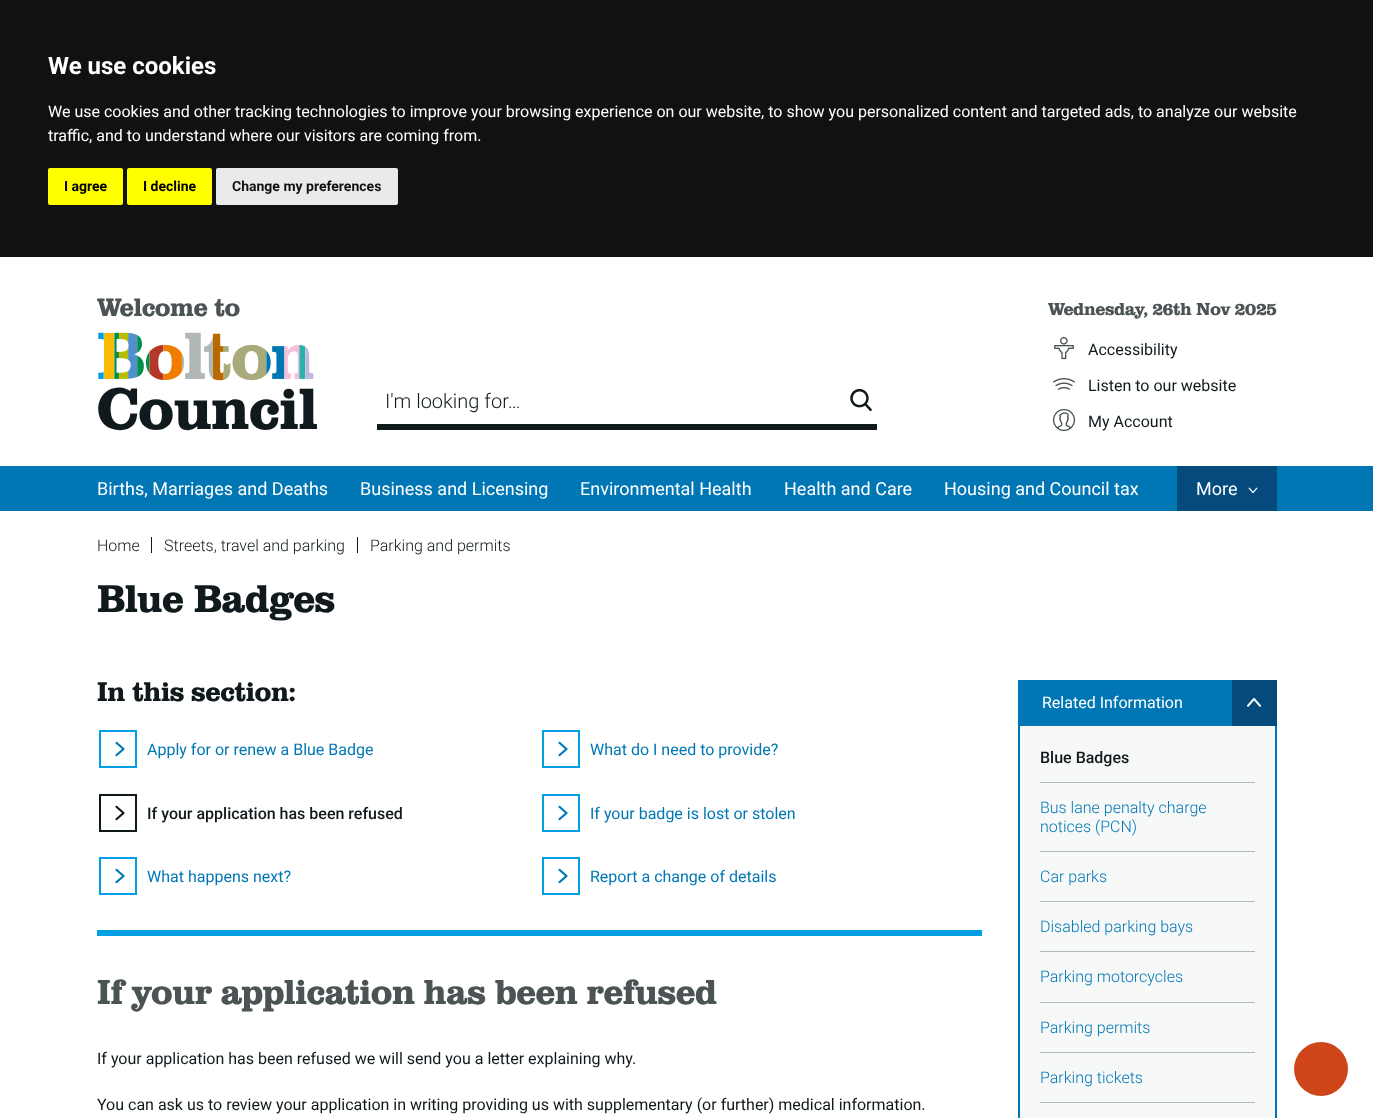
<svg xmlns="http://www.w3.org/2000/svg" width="1373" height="1118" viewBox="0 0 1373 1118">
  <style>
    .t1 { font: bold 24px Roboto; fill: #fff; }
    .t2 { font: 16px Roboto; fill: #fff; }
    .t3 { font: bold 14px Roboto; fill: #000; }
    .t4 { font: bold 14px Roboto; fill: #111; }
    .t5 { font: 26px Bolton; fill: #4c5355; }
    .t6 { font: 60px Bolton; fill: #10191c; }
    .t7 { font: 300 20px Roboto; fill: #10191c; }
    .t8 { font: 18px Bolton; fill: #4c5355; }
    .t9 { font: 16px Roboto; fill: #10191c; }
    .t10 { font: 18px Roboto; fill: #fff; }
    .t11 { font: 300 16px Roboto; fill: #10191c; }
    .t12 { font: 40px Bolton; fill: #10191c; }
    .t13 { font: 28px Bolton; fill: #10191c; }
    .t14 { font: 16px Roboto; fill: #0077b4; }
    .t15 { font: 500 16px Roboto; fill: #10191c; }
    .t16 { font: 36px Bolton; fill: #4c5355; }
    .t17 { font: 300 16px Roboto; fill: #0077b4; }
  </style>
  <rect width="100%" height="100%" fill="#fff"/>
  <rect x="0" y="0" width="1373" height="257" fill="#111"/>
  <text x="48" y="74" class="t1">We use cookies</text>
  <text x="48" y="117" class="t2">We use cookies and other tracking technologies to improve your browsing experience on our website, to show you personalized content and targeted ads, to analyze our website</text>
  <text x="48" y="141" class="t2">traffic, and to understand where our visitors are coming from.</text>
  <rect x="48" y="168" width="75" height="37" rx="2" fill="#ff0"/>
  <text x="64" y="191" class="t3">I agree</text>
  <rect x="127" y="168" width="85" height="37" rx="2" fill="#ff0"/>
  <text x="143" y="191" class="t3">I decline</text>
  <rect x="216" y="168" width="182" height="37" rx="2" fill="#eaeaea"/>
  <text x="232" y="191" class="t4">Change my preferences</text>
  <text x="97" y="316" class="t5">Welcome to</text>
  <image x="98" y="332" width="216" height="50" href="images/1.png"/>
  <text x="97" y="429" class="t6">Council</text>
  <text x="385" y="408" class="t7">I'm looking for…</text>
  <image x="850" y="388" width="22" height="24" href="images/2.png"/>
  <rect x="377" y="424" width="500" height="6" fill="#10191c"/>
  <text x="1048" y="315" class="t8">Wednesday, 26th Nov 2025</text>
  <image x="1054" y="336" width="20" height="24" href="images/3.png"/>
  <text x="1088" y="355" class="t9">Accessibility</text>
  <image x="1053" y="378" width="22" height="12" href="images/4.png"/>
  <text x="1088" y="391" class="t9">Listen to our website</text>
  <image x="1052" y="408" width="24" height="24" href="images/5.png"/>
  <text x="1088" y="427" class="t9">My Account</text>
  <rect x="0" y="466" width="1373" height="45" fill="#0077b4"/>
  <text x="97" y="495" class="t10">Births, Marriages and Deaths</text>
  <text x="360" y="495" class="t10">Business and Licensing</text>
  <text x="580" y="495" class="t10">Environmental Health</text>
  <text x="784" y="495" class="t10">Health and Care</text>
  <text x="944" y="495" class="t10">Housing and Council tax</text>
  <rect x="1177" y="466" width="100" height="45" fill="#044a7c"/>
  <text x="1196" y="495" class="t10">More</text>
  <image x="1248" y="487" width="10" height="7" href="images/6.png"/>
  <text x="97" y="551" class="t11">Home</text>
  <rect x="151" y="537" width="1" height="16" fill="#10191c"/>
  <text x="164" y="551" class="t11">Streets, travel and parking</text>
  <rect x="357" y="537" width="1" height="16" fill="#10191c"/>
  <text x="370" y="551" class="t11">Parking and permits</text>
  <text x="97" y="612" class="t12">Blue Badges</text>
  <rect x="97" y="930" width="885" height="6" fill="#009fe3"/>
  <text x="97" y="701" class="t13">In this section:</text>
  <rect x="100" y="731" width="36" height="36" fill="none" stroke="#009fe3" stroke-width="2"/>
  <image x="115" y="741" width="10" height="16" href="images/7.png"/>
  <text x="147" y="755" class="t14">Apply for or renew a Blue Badge</text>
  <rect x="543" y="731" width="36" height="36" fill="none" stroke="#009fe3" stroke-width="2"/>
  <image x="558" y="741" width="10" height="16" href="images/7.png"/>
  <text x="590" y="755" class="t14">What do I need to provide?</text>
  <rect x="100" y="795" width="36" height="36" fill="none" stroke="#10191c" stroke-width="2"/>
  <image x="115" y="805" width="10" height="16" href="images/8.png"/>
  <text x="147" y="819" class="t15">If your application has been refused</text>
  <rect x="543" y="795" width="36" height="36" fill="none" stroke="#009fe3" stroke-width="2"/>
  <image x="558" y="805" width="10" height="16" href="images/7.png"/>
  <text x="590" y="819" class="t14">If your badge is lost or stolen</text>
  <rect x="100" y="858" width="36" height="36" fill="none" stroke="#009fe3" stroke-width="2"/>
  <image x="115" y="868" width="10" height="16" href="images/7.png"/>
  <text x="147" y="882" class="t14">What happens next?</text>
  <rect x="543" y="858" width="36" height="36" fill="none" stroke="#009fe3" stroke-width="2"/>
  <image x="558" y="868" width="10" height="16" href="images/7.png"/>
  <text x="590" y="882" class="t14">Report a change of details</text>
  <text x="97" y="1004" class="t16">If your application has been refused</text>
  <text x="97" y="1064" class="t9">If your application has been refused we will send you a letter explaining why.</text>
  <text x="97" y="1110" class="t9">You can ask us to review your application in writing providing us with supplementary (or further) medical information.</text>
  <rect x="1020" y="726" width="255" height="392" fill="#f7f8f8"/>
  <rect x="1018" y="680" width="214" height="46" fill="#0077b4"/>
  <text x="1042" y="708" class="t2">Related Information</text>
  <rect x="1232" y="680" width="45" height="46" fill="#044a7c"/>
  <image x="1247" y="698" width="14" height="9" href="images/9.png"/>
  <rect x="1275" y="726" width="2" height="392" fill="#0077b4"/>
  <rect x="1018" y="726" width="2" height="392" fill="#0077b4"/>
  <rect x="1040" y="782" width="215" height="1" fill="#b1b8b6"/>
  <text x="1040" y="763" class="t15">Blue Badges</text>
  <rect x="1040" y="851" width="215" height="1" fill="#b1b8b6"/>
  <text x="1040" y="813" class="t17">Bus lane penalty charge</text>
  <text x="1040" y="832" class="t17">notices (PCN)</text>
  <rect x="1040" y="901" width="215" height="1" fill="#b1b8b6"/>
  <text x="1040" y="882" class="t17">Car parks</text>
  <rect x="1040" y="951" width="215" height="1" fill="#b1b8b6"/>
  <text x="1040" y="932" class="t17">Disabled parking bays</text>
  <rect x="1040" y="1002" width="215" height="1" fill="#b1b8b6"/>
  <text x="1040" y="982" class="t17">Parking motorcycles</text>
  <rect x="1040" y="1052" width="215" height="1" fill="#b1b8b6"/>
  <text x="1040" y="1033" class="t17">Parking permits</text>
  <rect x="1040" y="1102" width="215" height="1" fill="#b1b8b6"/>
  <text x="1040" y="1083" class="t17">Parking tickets</text>
  <circle cx="1321" cy="1069" r="27" fill="#cd4518"/>
</svg>
